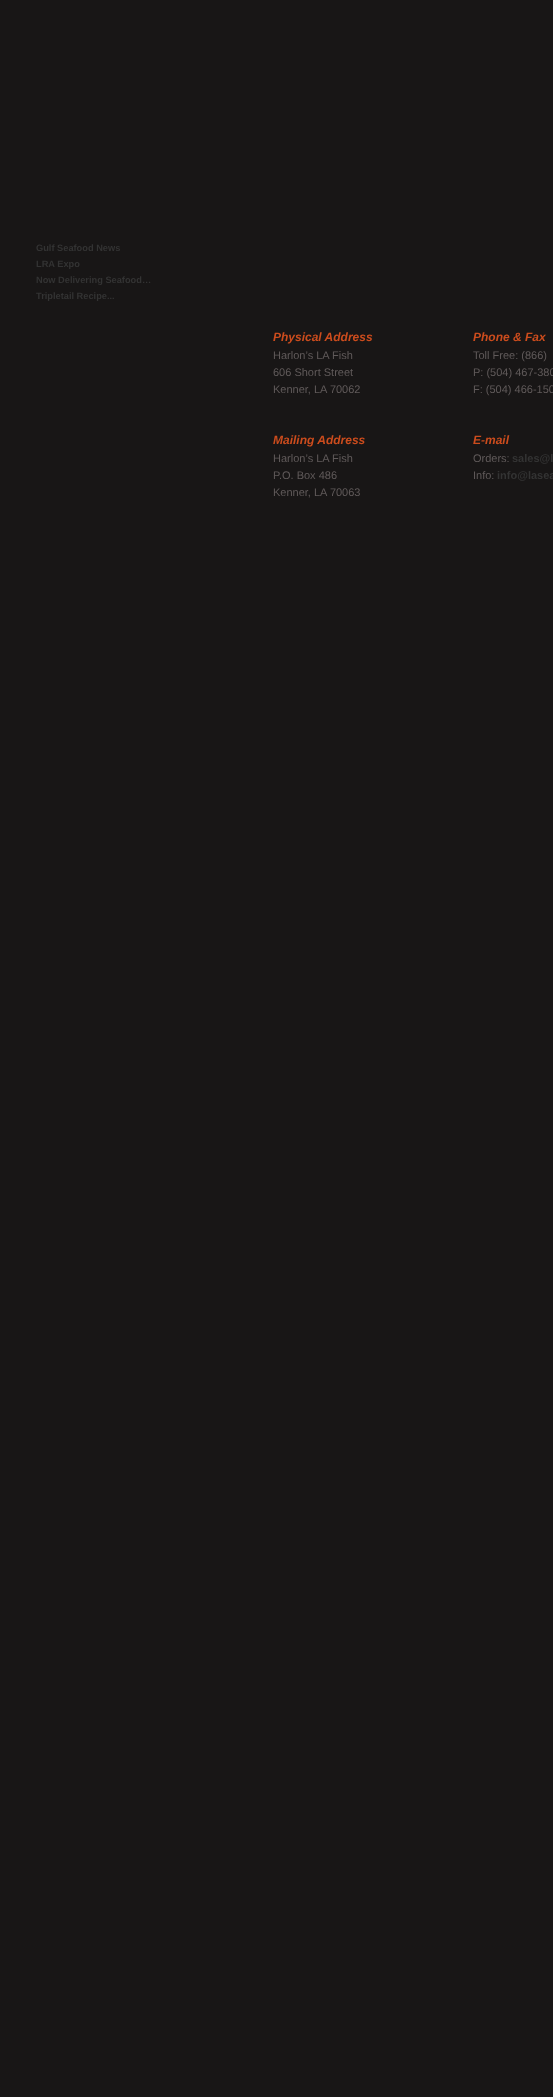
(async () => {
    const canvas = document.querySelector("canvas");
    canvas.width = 553;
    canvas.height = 2097;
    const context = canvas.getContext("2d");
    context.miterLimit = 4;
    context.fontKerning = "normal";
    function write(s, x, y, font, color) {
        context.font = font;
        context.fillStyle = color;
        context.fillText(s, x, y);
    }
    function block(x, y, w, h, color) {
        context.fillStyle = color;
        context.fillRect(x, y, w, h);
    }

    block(0, 0, 553, 2097, "rgb(24, 22, 22)");
    write("Gulf Seafood News", 36, 251, "bold 9.25px Liberation Sans", "rgb(51, 51, 51)");
    write("LRA Expo", 36, 267, "bold 9.25px Liberation Sans", "rgb(51, 51, 51)");
    write("Now Delivering Seafood…", 36, 283, "bold 9.25px Liberation Sans", "rgb(51, 51, 51)");
    write("Tripletail Recipe...", 36, 299, "bold 9.25px Liberation Sans", "rgb(51, 51, 51)");
    write("Physical Address", 273, 341, "italic bold 12px Liberation Sans", "rgb(204, 76, 29)");
    write("Harlon’s LA Fish", 273, 359, "11px Liberation Sans", "rgb(96, 90, 90)");
    write("606 Short Street", 273, 376, "11px Liberation Sans", "rgb(96, 90, 90)");
    write("Kenner, LA 70062", 273, 393, "11px Liberation Sans", "rgb(96, 90, 90)");
    write("Phone & Fax", 473, 341, "italic bold 12px Liberation Sans", "rgb(204, 76, 29)");
    write("Toll Free: (866)", 473, 359, "11px Liberation Sans", "rgb(96, 90, 90)");
    write("P: (504) 467-380", 473, 376, "11px Liberation Sans", "rgb(96, 90, 90)");
    write("F: (504) 466-150", 473, 393, "11px Liberation Sans", "rgb(96, 90, 90)");
    write("Mailing Address", 273, 444, "italic bold 12px Liberation Sans", "rgb(204, 76, 29)");
    write("Harlon’s LA Fish", 273, 462, "11px Liberation Sans", "rgb(96, 90, 90)");
    write("P.O. Box 486", 273, 479, "11px Liberation Sans", "rgb(96, 90, 90)");
    write("Kenner, LA 70063", 273, 496, "11px Liberation Sans", "rgb(96, 90, 90)");
    write("E-mail", 473, 444, "italic bold 12px Liberation Sans", "rgb(204, 76, 29)");
    write("Orders:", 473, 462, "11px Liberation Sans", "rgb(96, 90, 90)");
    write("sales@l", 512, 462, "bold 11px Liberation Sans", "rgb(51, 51, 51)");
    write("Info:", 473, 479, "11px Liberation Sans", "rgb(96, 90, 90)");
    write("info@lasea", 497, 479, "bold 11px Liberation Sans", "rgb(51, 51, 51)");
})();
